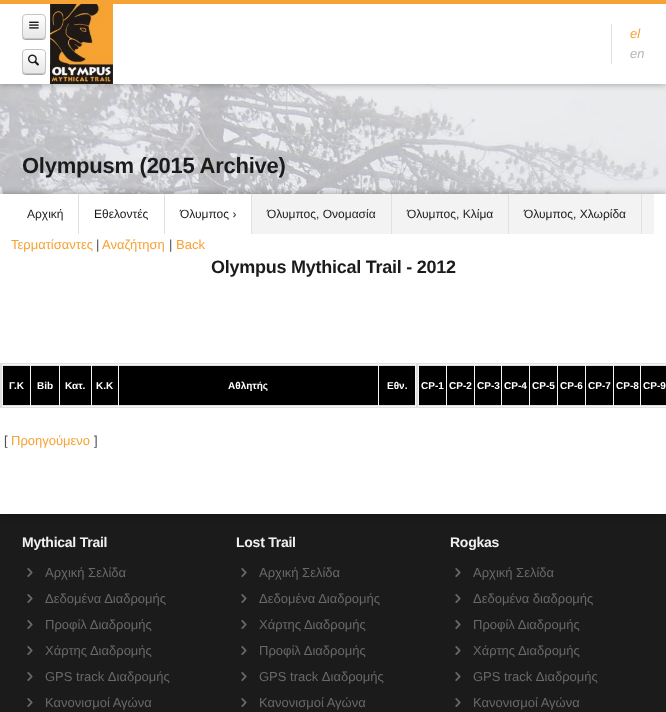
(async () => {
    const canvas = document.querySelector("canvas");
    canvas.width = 666;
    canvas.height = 712;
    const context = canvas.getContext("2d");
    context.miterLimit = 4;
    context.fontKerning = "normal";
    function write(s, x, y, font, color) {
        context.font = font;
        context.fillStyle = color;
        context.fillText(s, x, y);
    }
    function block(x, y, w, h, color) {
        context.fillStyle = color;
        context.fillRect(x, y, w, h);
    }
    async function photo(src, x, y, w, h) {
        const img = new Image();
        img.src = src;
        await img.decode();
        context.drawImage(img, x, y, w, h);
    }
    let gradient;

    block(0, 0, 666, 712, "rgb(255, 255, 255)");
    await photo("media/4.png", 0, 84, 666, 110);
    block(0, 84, 666, 110, "rgba(240, 240, 240, 0.6)");
    context.fillStyle = "rgba(0, 0, 0, 0.35)";
    context.filter = "blur(3.5px)";
    context.beginPath();
    context.rect(0, 4, 666, 80);
    context.fill();
    context.filter = "none";
    block(0, 0, 666, 4, "rgb(247, 162, 52)");
    block(0, 4, 666, 80, "rgb(255, 255, 255)");
    context.fillStyle = "rgb(166, 166, 166)";
    context.beginPath();
    context.moveTo(22, 35);
    context.bezierCurveTo(22, 40, 24.5, 40, 28.5, 40);
    context.lineTo(39.5, 40);
    context.bezierCurveTo(43.5, 40, 46, 40, 46, 35);
    context.bezierCurveTo(46, 37, 44, 39, 42, 39);
    context.lineTo(26, 39);
    context.bezierCurveTo(24, 39, 22, 37, 22, 35);
    context.closePath();
    context.fill();
    context.save();
    context.beginPath();
    context.roundRect(22, 14, 24, 25, 4);
    context.clip();
    gradient = context.createLinearGradient(34, 15, 34, 38);
    gradient.addColorStop(0, "rgb(255, 255, 255)");
    gradient.addColorStop(1, "rgb(231, 231, 231)");
    context.fillStyle = gradient;
    context.fillRect(22, 15, 24, 23);
    context.restore();
    context.beginPath();
    context.roundRect(22.5, 14.5, 23, 24, 3.5);
    context.strokeStyle = "rgb(196, 196, 196)";
    context.stroke();
    await photo("media/1.png", 29, 21, 10, 8);
    context.beginPath();
    context.moveTo(22, 70);
    context.bezierCurveTo(22, 75, 24.5, 75, 28.5, 75);
    context.lineTo(39.5, 75);
    context.bezierCurveTo(43.5, 75, 46, 75, 46, 70);
    context.bezierCurveTo(46, 72, 44, 74, 42, 74);
    context.lineTo(26, 74);
    context.bezierCurveTo(24, 74, 22, 72, 22, 70);
    context.closePath();
    context.fill();
    context.save();
    context.beginPath();
    context.roundRect(22, 49, 24, 25, 4);
    context.clip();
    gradient = context.createLinearGradient(34, 50, 34, 73);
    gradient.addColorStop(0, "rgb(255, 255, 255)");
    gradient.addColorStop(1, "rgb(231, 231, 231)");
    context.fillStyle = gradient;
    context.fillRect(22, 50, 24, 23);
    context.restore();
    context.beginPath();
    context.roundRect(22.5, 49.5, 23, 24, 3.5);
    context.stroke();
    await photo("media/2.png", 28, 54, 11, 12);
    await photo("media/3.png", 50, 4, 63, 80);
    block(611, 24, 1, 40, "rgb(224, 224, 224)");
    write("el", 630, 38, "italic 13px Liberation Sans", "rgb(247, 162, 52)");
    write("en", 630, 58, "italic 13px Liberation Sans", "rgb(182, 182, 182)");
    context.letterSpacing = "-0.25px";
    write("Olympusm (2015 Archive)", 22, 173, "bold 22px Liberation Sans", "rgb(27, 27, 27)");
    block(0, 514, 666, 198, "rgb(27, 27, 27)");
    context.fillStyle = "rgba(0, 0, 0, 0.35)";
    context.filter = "blur(3.5px)";
    context.beginPath();
    context.rect(0, 194, 666, 320);
    context.fill();
    context.filter = "none";
    block(0, 194, 666, 320, "rgb(255, 255, 255)");
    block(78, 194, 1, 40, "rgb(224, 224, 224)");
    context.letterSpacing = "0px";
    write("Αρχική", 27, 218, "12px Liberation Sans", "rgb(27, 27, 27)");
    block(164, 194, 1, 40, "rgb(224, 224, 224)");
    write("Εθελοντές", 94, 218, "12px Liberation Sans", "rgb(27, 27, 27)");
    block(251, 194, 1, 40, "rgb(224, 224, 224)");
    write("Όλυμπος ›", 180, 218, "12px Liberation Sans", "rgb(27, 27, 27)");
    block(252, 194, 402, 40, "rgb(243, 243, 243)");
    block(391, 194, 1, 40, "rgb(224, 224, 224)");
    write("Όλυμπος, Ονομασία", 267, 218, "12px Liberation Sans", "rgb(27, 27, 27)");
    block(508, 194, 1, 40, "rgb(224, 224, 224)");
    write("Όλυμπος, Κλίμα", 407, 218, "12px Liberation Sans", "rgb(27, 27, 27)");
    block(641, 194, 1, 40, "rgb(224, 224, 224)");
    write("Όλυμπος, Χλωρίδα", 524, 218, "12px Liberation Sans", "rgb(27, 27, 27)");
    write("Τερματίσαντες", 11, 249, "13px Liberation Sans", "rgb(247, 162, 52)");
    write("|", 96, 249, "13px Liberation Sans", "rgb(78, 78, 78)");
    write("Αναζήτηση", 102, 249, "13px Liberation Sans", "rgb(247, 162, 52)");
    write("|", 169, 249, "13px Liberation Sans", "rgb(78, 78, 78)");
    write("Back", 176, 249, "13px Liberation Sans", "rgb(247, 162, 52)");
    context.letterSpacing = "-0.25px";
    write("Olympus Mythical Trail - 2012", 211, 273, "bold 18px Liberation Sans", "rgb(27, 27, 27)");
    block(0, 363, 1, 45, "rgb(224, 224, 224)");
    block(2, 364, 664, 43, "rgb(245, 245, 245)");
    block(416, 364, 2, 43, "rgb(224, 224, 224)");
    block(1, 364, 1, 43, "rgb(224, 224, 224)");
    block(3, 366, 27, 39, "rgb(0, 0, 0)");
    block(3, 365, 27, 1, "rgb(224, 224, 224)");
    block(3, 405, 27, 1, "rgb(224, 224, 224)");
    context.letterSpacing = "0px";
    write("Γ.Κ", 9, 389, "bold 10px Liberation Sans", "rgb(255, 255, 255)");
    block(31, 366, 28, 39, "rgb(0, 0, 0)");
    block(31, 365, 28, 1, "rgb(224, 224, 224)");
    block(31, 405, 28, 1, "rgb(224, 224, 224)");
    write("Bib", 37, 389, "bold 10px Liberation Sans", "rgb(255, 255, 255)");
    block(60, 366, 31, 39, "rgb(0, 0, 0)");
    block(60, 365, 31, 1, "rgb(224, 224, 224)");
    block(60, 405, 31, 1, "rgb(224, 224, 224)");
    write("Κατ.", 65, 389, "bold 10px Liberation Sans", "rgb(255, 255, 255)");
    block(92, 366, 26, 39, "rgb(0, 0, 0)");
    block(92, 365, 26, 1, "rgb(224, 224, 224)");
    block(92, 405, 26, 1, "rgb(224, 224, 224)");
    write("Κ.Κ", 96, 389, "bold 10px Liberation Sans", "rgb(255, 255, 255)");
    block(119, 366, 259, 39, "rgb(0, 0, 0)");
    block(119, 365, 259, 1, "rgb(224, 224, 224)");
    block(119, 405, 259, 1, "rgb(224, 224, 224)");
    write("Αθλητής", 228, 389, "bold 10px Liberation Sans", "rgb(255, 255, 255)");
    block(379, 366, 36, 39, "rgb(0, 0, 0)");
    block(379, 365, 36, 1, "rgb(224, 224, 224)");
    block(379, 405, 36, 1, "rgb(224, 224, 224)");
    write("Εθν.", 387, 389, "bold 10px Liberation Sans", "rgb(255, 255, 255)");
    block(0, 363, 666, 1, "rgb(224, 224, 224)");
    block(0, 407, 666, 1, "rgb(224, 224, 224)");
    block(419, 366, 27, 39, "rgb(0, 0, 0)");
    block(419, 365, 27, 1, "rgb(224, 224, 224)");
    block(419, 405, 27, 1, "rgb(224, 224, 224)");
    write("CP-1", 421, 389, "bold 10px Liberation Sans", "rgb(255, 255, 255)");
    block(447, 366, 27, 39, "rgb(0, 0, 0)");
    block(447, 365, 27, 1, "rgb(224, 224, 224)");
    block(447, 405, 27, 1, "rgb(224, 224, 224)");
    write("CP-2", 449, 389, "bold 10px Liberation Sans", "rgb(255, 255, 255)");
    block(475, 366, 26, 39, "rgb(0, 0, 0)");
    block(475, 365, 26, 1, "rgb(224, 224, 224)");
    block(475, 405, 26, 1, "rgb(224, 224, 224)");
    write("CP-3", 477, 389, "bold 10px Liberation Sans", "rgb(255, 255, 255)");
    block(502, 366, 27, 39, "rgb(0, 0, 0)");
    block(502, 365, 27, 1, "rgb(224, 224, 224)");
    block(502, 405, 27, 1, "rgb(224, 224, 224)");
    write("CP-4", 504, 389, "bold 10px Liberation Sans", "rgb(255, 255, 255)");
    block(530, 366, 27, 39, "rgb(0, 0, 0)");
    block(530, 365, 27, 1, "rgb(224, 224, 224)");
    block(530, 405, 27, 1, "rgb(224, 224, 224)");
    write("CP-5", 532, 389, "bold 10px Liberation Sans", "rgb(255, 255, 255)");
    block(558, 366, 27, 39, "rgb(0, 0, 0)");
    block(558, 365, 27, 1, "rgb(224, 224, 224)");
    block(558, 405, 27, 1, "rgb(224, 224, 224)");
    write("CP-6", 560, 389, "bold 10px Liberation Sans", "rgb(255, 255, 255)");
    block(586, 366, 27, 39, "rgb(0, 0, 0)");
    block(586, 365, 27, 1, "rgb(224, 224, 224)");
    block(586, 405, 27, 1, "rgb(224, 224, 224)");
    write("CP-7", 588, 389, "bold 10px Liberation Sans", "rgb(255, 255, 255)");
    block(614, 366, 26, 39, "rgb(0, 0, 0)");
    block(614, 365, 26, 1, "rgb(224, 224, 224)");
    block(614, 405, 26, 1, "rgb(224, 224, 224)");
    write("CP-8", 616, 389, "bold 10px Liberation Sans", "rgb(255, 255, 255)");
    block(641, 366, 25, 39, "rgb(0, 0, 0)");
    block(641, 365, 25, 1, "rgb(224, 224, 224)");
    block(641, 405, 25, 1, "rgb(224, 224, 224)");
    write("CP-9", 643, 389, "bold 10px Liberation Sans", "rgb(255, 255, 255)");
    write("[", 4, 445, "13px Liberation Sans", "rgb(78, 78, 78)");
    write("Προηγούμενο", 11, 445, "13px Liberation Sans", "rgb(247, 162, 52)");
    write("]", 94, 445, "13px Liberation Sans", "rgb(78, 78, 78)");
    context.letterSpacing = "-0.25px";
    write("Mythical Trail", 22, 547, "bold 14px Liberation Sans", "rgb(240, 240, 240)");
    await photo("media/5.png", 27, 568, 6, 9);
    context.letterSpacing = "0px";
    write("Αρχική Σελίδα", 45, 577, "13px Liberation Sans", "rgb(105, 105, 105)");
    await photo("media/5.png", 27, 594, 6, 9);
    write("Δεδομένα Διαδρομής", 45, 603, "13px Liberation Sans", "rgb(105, 105, 105)");
    await photo("media/5.png", 27, 620, 6, 9);
    write("Προφίλ Διαδρομής", 45, 629, "13px Liberation Sans", "rgb(105, 105, 105)");
    await photo("media/5.png", 27, 646, 6, 9);
    write("Χάρτης Διαδρομής", 45, 655, "13px Liberation Sans", "rgb(105, 105, 105)");
    await photo("media/5.png", 27, 672, 6, 9);
    write("GPS track Διαδρομής", 45, 681, "13px Liberation Sans", "rgb(105, 105, 105)");
    await photo("media/5.png", 27, 698, 6, 9);
    write("Κανονισμοί Αγώνα", 45, 707, "13px Liberation Sans", "rgb(105, 105, 105)");
    context.letterSpacing = "-0.25px";
    write("Lost Trail", 236, 547, "bold 14px Liberation Sans", "rgb(240, 240, 240)");
    await photo("media/5.png", 241, 568, 6, 9);
    context.letterSpacing = "0px";
    write("Αρχική Σελίδα", 259, 577, "13px Liberation Sans", "rgb(105, 105, 105)");
    await photo("media/5.png", 241, 594, 6, 9);
    write("Δεδομένα Διαδρομής", 259, 603, "13px Liberation Sans", "rgb(105, 105, 105)");
    await photo("media/5.png", 241, 620, 6, 9);
    write("Χάρτης Διαδρομής", 259, 629, "13px Liberation Sans", "rgb(105, 105, 105)");
    await photo("media/5.png", 241, 646, 6, 9);
    write("Προφίλ Διαδρομής", 259, 655, "13px Liberation Sans", "rgb(105, 105, 105)");
    await photo("media/5.png", 241, 672, 6, 9);
    write("GPS track Διαδρομής", 259, 681, "13px Liberation Sans", "rgb(105, 105, 105)");
    await photo("media/5.png", 241, 698, 6, 9);
    write("Κανονισμοί Αγώνα", 259, 707, "13px Liberation Sans", "rgb(105, 105, 105)");
    context.letterSpacing = "-0.25px";
    write("Rogkas", 450, 547, "bold 14px Liberation Sans", "rgb(240, 240, 240)");
    await photo("media/5.png", 455, 568, 6, 9);
    context.letterSpacing = "0px";
    write("Αρχική Σελίδα", 473, 577, "13px Liberation Sans", "rgb(105, 105, 105)");
    await photo("media/5.png", 455, 594, 6, 9);
    write("Δεδομένα διαδρομής", 473, 603, "13px Liberation Sans", "rgb(105, 105, 105)");
    await photo("media/5.png", 455, 620, 6, 9);
    write("Προφίλ Διαδρομής", 473, 629, "13px Liberation Sans", "rgb(105, 105, 105)");
    await photo("media/5.png", 455, 646, 6, 9);
    write("Χάρτης Διαδρομής", 473, 655, "13px Liberation Sans", "rgb(105, 105, 105)");
    await photo("media/5.png", 455, 672, 6, 9);
    write("GPS track Διαδρομής", 473, 681, "13px Liberation Sans", "rgb(105, 105, 105)");
    await photo("media/5.png", 455, 698, 6, 9);
    write("Κανονισμοί Αγώνα", 473, 707, "13px Liberation Sans", "rgb(105, 105, 105)");
})();
